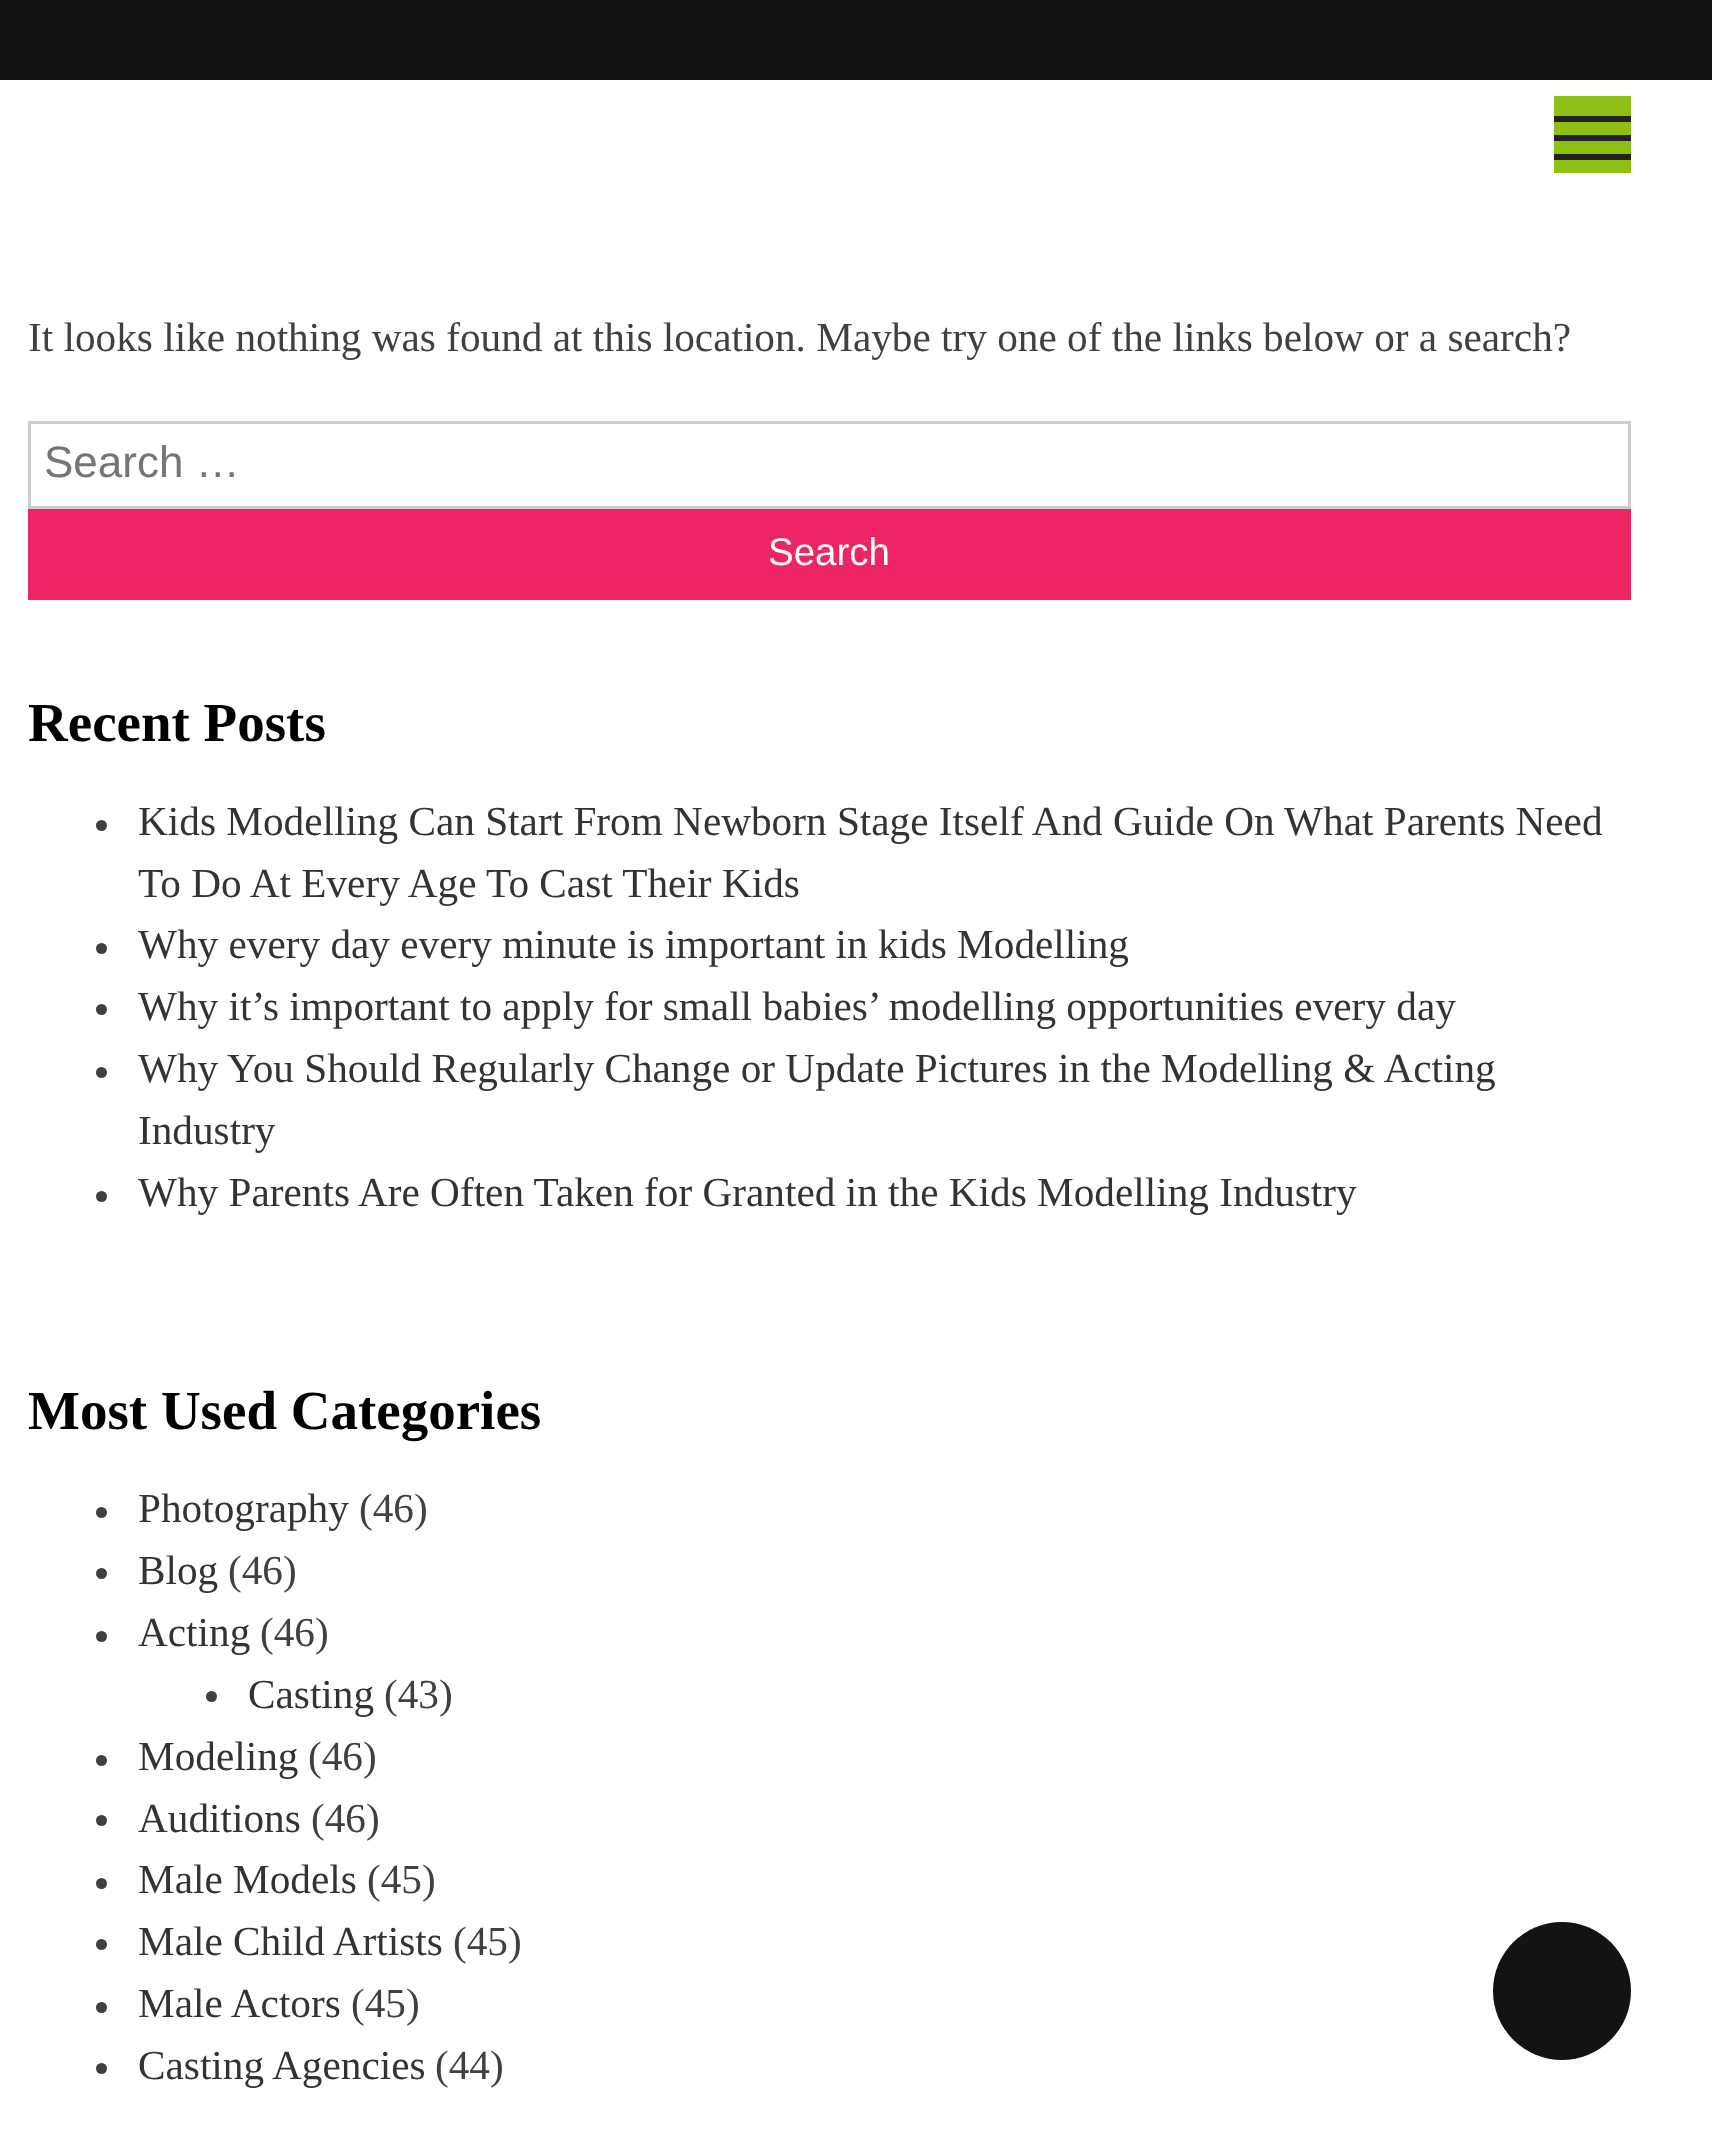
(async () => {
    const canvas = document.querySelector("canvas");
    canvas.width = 1712;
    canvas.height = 2140;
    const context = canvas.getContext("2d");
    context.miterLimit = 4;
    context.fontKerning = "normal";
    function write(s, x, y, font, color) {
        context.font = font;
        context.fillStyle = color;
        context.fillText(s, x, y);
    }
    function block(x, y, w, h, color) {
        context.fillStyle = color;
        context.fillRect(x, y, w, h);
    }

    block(0, 0, 1712, 2140, "rgb(255, 255, 255)");
    block(0, 0, 1712, 80, "rgb(16, 16, 16)");
    block(1554, 96, 77, 77, "rgb(141, 191, 20)");
    block(1554, 135, 77, 6, "rgb(34, 34, 34)");
    block(1554, 116, 77, 6, "rgb(34, 34, 34)");
    block(1554, 154, 77, 6, "rgb(34, 34, 34)");
    write("It looks like nothing was found at this location. Maybe try one of the links below or a search?", 28, 351, "41.25px Liberation Serif", "rgb(64, 64, 64)");
    context.strokeStyle = "rgb(204, 204, 204)";
    context.lineWidth = 3;
    context.strokeRect(29.5, 422.5, 1600, 85);
    write("Search …", 44, 477, "44px Liberation Sans", "rgb(117, 117, 117)");
    block(28, 509, 1603, 91, "rgb(237, 37, 99)");
    write("Search", 768, 565, "38.5px Liberation Sans", "rgb(255, 255, 255)");
    write("Recent Posts", 28, 741, "bold 55px Liberation Serif", "rgb(0, 0, 0)");
    context.fillStyle = "rgb(64, 64, 64)";
    context.beginPath();
    context.arc(101.5, 825.5, 5.5, 0, Math.PI * 2);
    context.fill();
    write("Kids Modelling Can Start From Newborn Stage Itself And Guide On What Parents Need", 138, 835, "41.25px Liberation Serif", "rgb(51, 51, 51)");
    write("To Do At Every Age To Cast Their Kids", 138, 897, "41.25px Liberation Serif", "rgb(51, 51, 51)");
    context.fillStyle = "rgb(64, 64, 64)";
    context.beginPath();
    context.arc(101.5, 948.5, 5.5, 0, Math.PI * 2);
    context.fill();
    write("Why every day every minute is important in kids Modelling", 138, 958, "41.25px Liberation Serif", "rgb(51, 51, 51)");
    context.fillStyle = "rgb(64, 64, 64)";
    context.beginPath();
    context.arc(101.5, 1009.5, 5.5, 0, Math.PI * 2);
    context.fill();
    write("Why it’s important to apply for small babies’ modelling opportunities every day", 138, 1020, "41.25px Liberation Serif", "rgb(51, 51, 51)");
    context.fillStyle = "rgb(64, 64, 64)";
    context.beginPath();
    context.arc(101.5, 1072.5, 5.5, 0, Math.PI * 2);
    context.fill();
    write("Why You Should Regularly Change or Update Pictures in the Modelling & Acting", 138, 1082, "41.25px Liberation Serif", "rgb(51, 51, 51)");
    write("Industry", 138, 1144, "41.25px Liberation Serif", "rgb(51, 51, 51)");
    context.fillStyle = "rgb(64, 64, 64)";
    context.beginPath();
    context.arc(101.5, 1196.5, 5.5, 0, Math.PI * 2);
    context.fill();
    write("Why Parents Are Often Taken for Granted in the Kids Modelling Industry", 138, 1206, "41.25px Liberation Serif", "rgb(51, 51, 51)");
    write("Most Used Categories", 28, 1429, "bold 55px Liberation Serif", "rgb(0, 0, 0)");
    context.fillStyle = "rgb(64, 64, 64)";
    context.beginPath();
    context.arc(101.5, 1512.5, 5.5, 0, Math.PI * 2);
    context.fill();
    write("Photography", 138, 1522, "41.25px Liberation Serif", "rgb(51, 51, 51)");
    write("(46)", 359, 1522, "41.25px Liberation Serif", "rgb(64, 64, 64)");
    context.beginPath();
    context.arc(101.5, 1573.5, 5.5, 0, Math.PI * 2);
    context.fill();
    write("Blog", 138, 1584, "41.25px Liberation Serif", "rgb(51, 51, 51)");
    write("(46)", 228, 1584, "41.25px Liberation Serif", "rgb(64, 64, 64)");
    context.beginPath();
    context.arc(101.5, 1636.5, 5.5, 0, Math.PI * 2);
    context.fill();
    write("Acting", 138, 1646, "41.25px Liberation Serif", "rgb(51, 51, 51)");
    write("(46)", 260, 1646, "41.25px Liberation Serif", "rgb(64, 64, 64)");
    context.beginPath();
    context.arc(211.5, 1696.5, 5.5, 0, Math.PI * 2);
    context.fill();
    write("Casting", 248, 1708, "41.25px Liberation Serif", "rgb(51, 51, 51)");
    write("(43)", 384, 1708, "41.25px Liberation Serif", "rgb(64, 64, 64)");
    context.beginPath();
    context.arc(101.5, 1760.5, 5.5, 0, Math.PI * 2);
    context.fill();
    write("Modeling", 138, 1770, "41.25px Liberation Serif", "rgb(51, 51, 51)");
    write("(46)", 308, 1770, "41.25px Liberation Serif", "rgb(64, 64, 64)");
    context.beginPath();
    context.arc(101.5, 1820.5, 5.5, 0, Math.PI * 2);
    context.fill();
    write("Auditions", 138, 1832, "41.25px Liberation Serif", "rgb(51, 51, 51)");
    write("(46)", 311, 1832, "41.25px Liberation Serif", "rgb(64, 64, 64)");
    context.beginPath();
    context.arc(101.5, 1883.5, 5.5, 0, Math.PI * 2);
    context.fill();
    write("Male Models", 138, 1893, "41.25px Liberation Serif", "rgb(51, 51, 51)");
    write("(45)", 367, 1893, "41.25px Liberation Serif", "rgb(64, 64, 64)");
    context.beginPath();
    context.arc(101.5, 1944.5, 5.5, 0, Math.PI * 2);
    context.fill();
    write("Male Child Artists", 138, 1955, "41.25px Liberation Serif", "rgb(51, 51, 51)");
    write("(45)", 453, 1955, "41.25px Liberation Serif", "rgb(64, 64, 64)");
    context.beginPath();
    context.arc(101.5, 2007.5, 5.5, 0, Math.PI * 2);
    context.fill();
    write("Male Actors", 138, 2017, "41.25px Liberation Serif", "rgb(51, 51, 51)");
    write("(45)", 351, 2017, "41.25px Liberation Serif", "rgb(64, 64, 64)");
    context.beginPath();
    context.arc(101.5, 2068.5, 5.5, 0, Math.PI * 2);
    context.fill();
    write("Casting Agencies", 138, 2079, "41.25px Liberation Serif", "rgb(51, 51, 51)");
    write("(44)", 435, 2079, "41.25px Liberation Serif", "rgb(64, 64, 64)");
    context.fillStyle = "rgb(19, 19, 19)";
    context.beginPath();
    context.arc(1562, 1991, 69, 0, Math.PI * 2);
    context.fill();
})();
